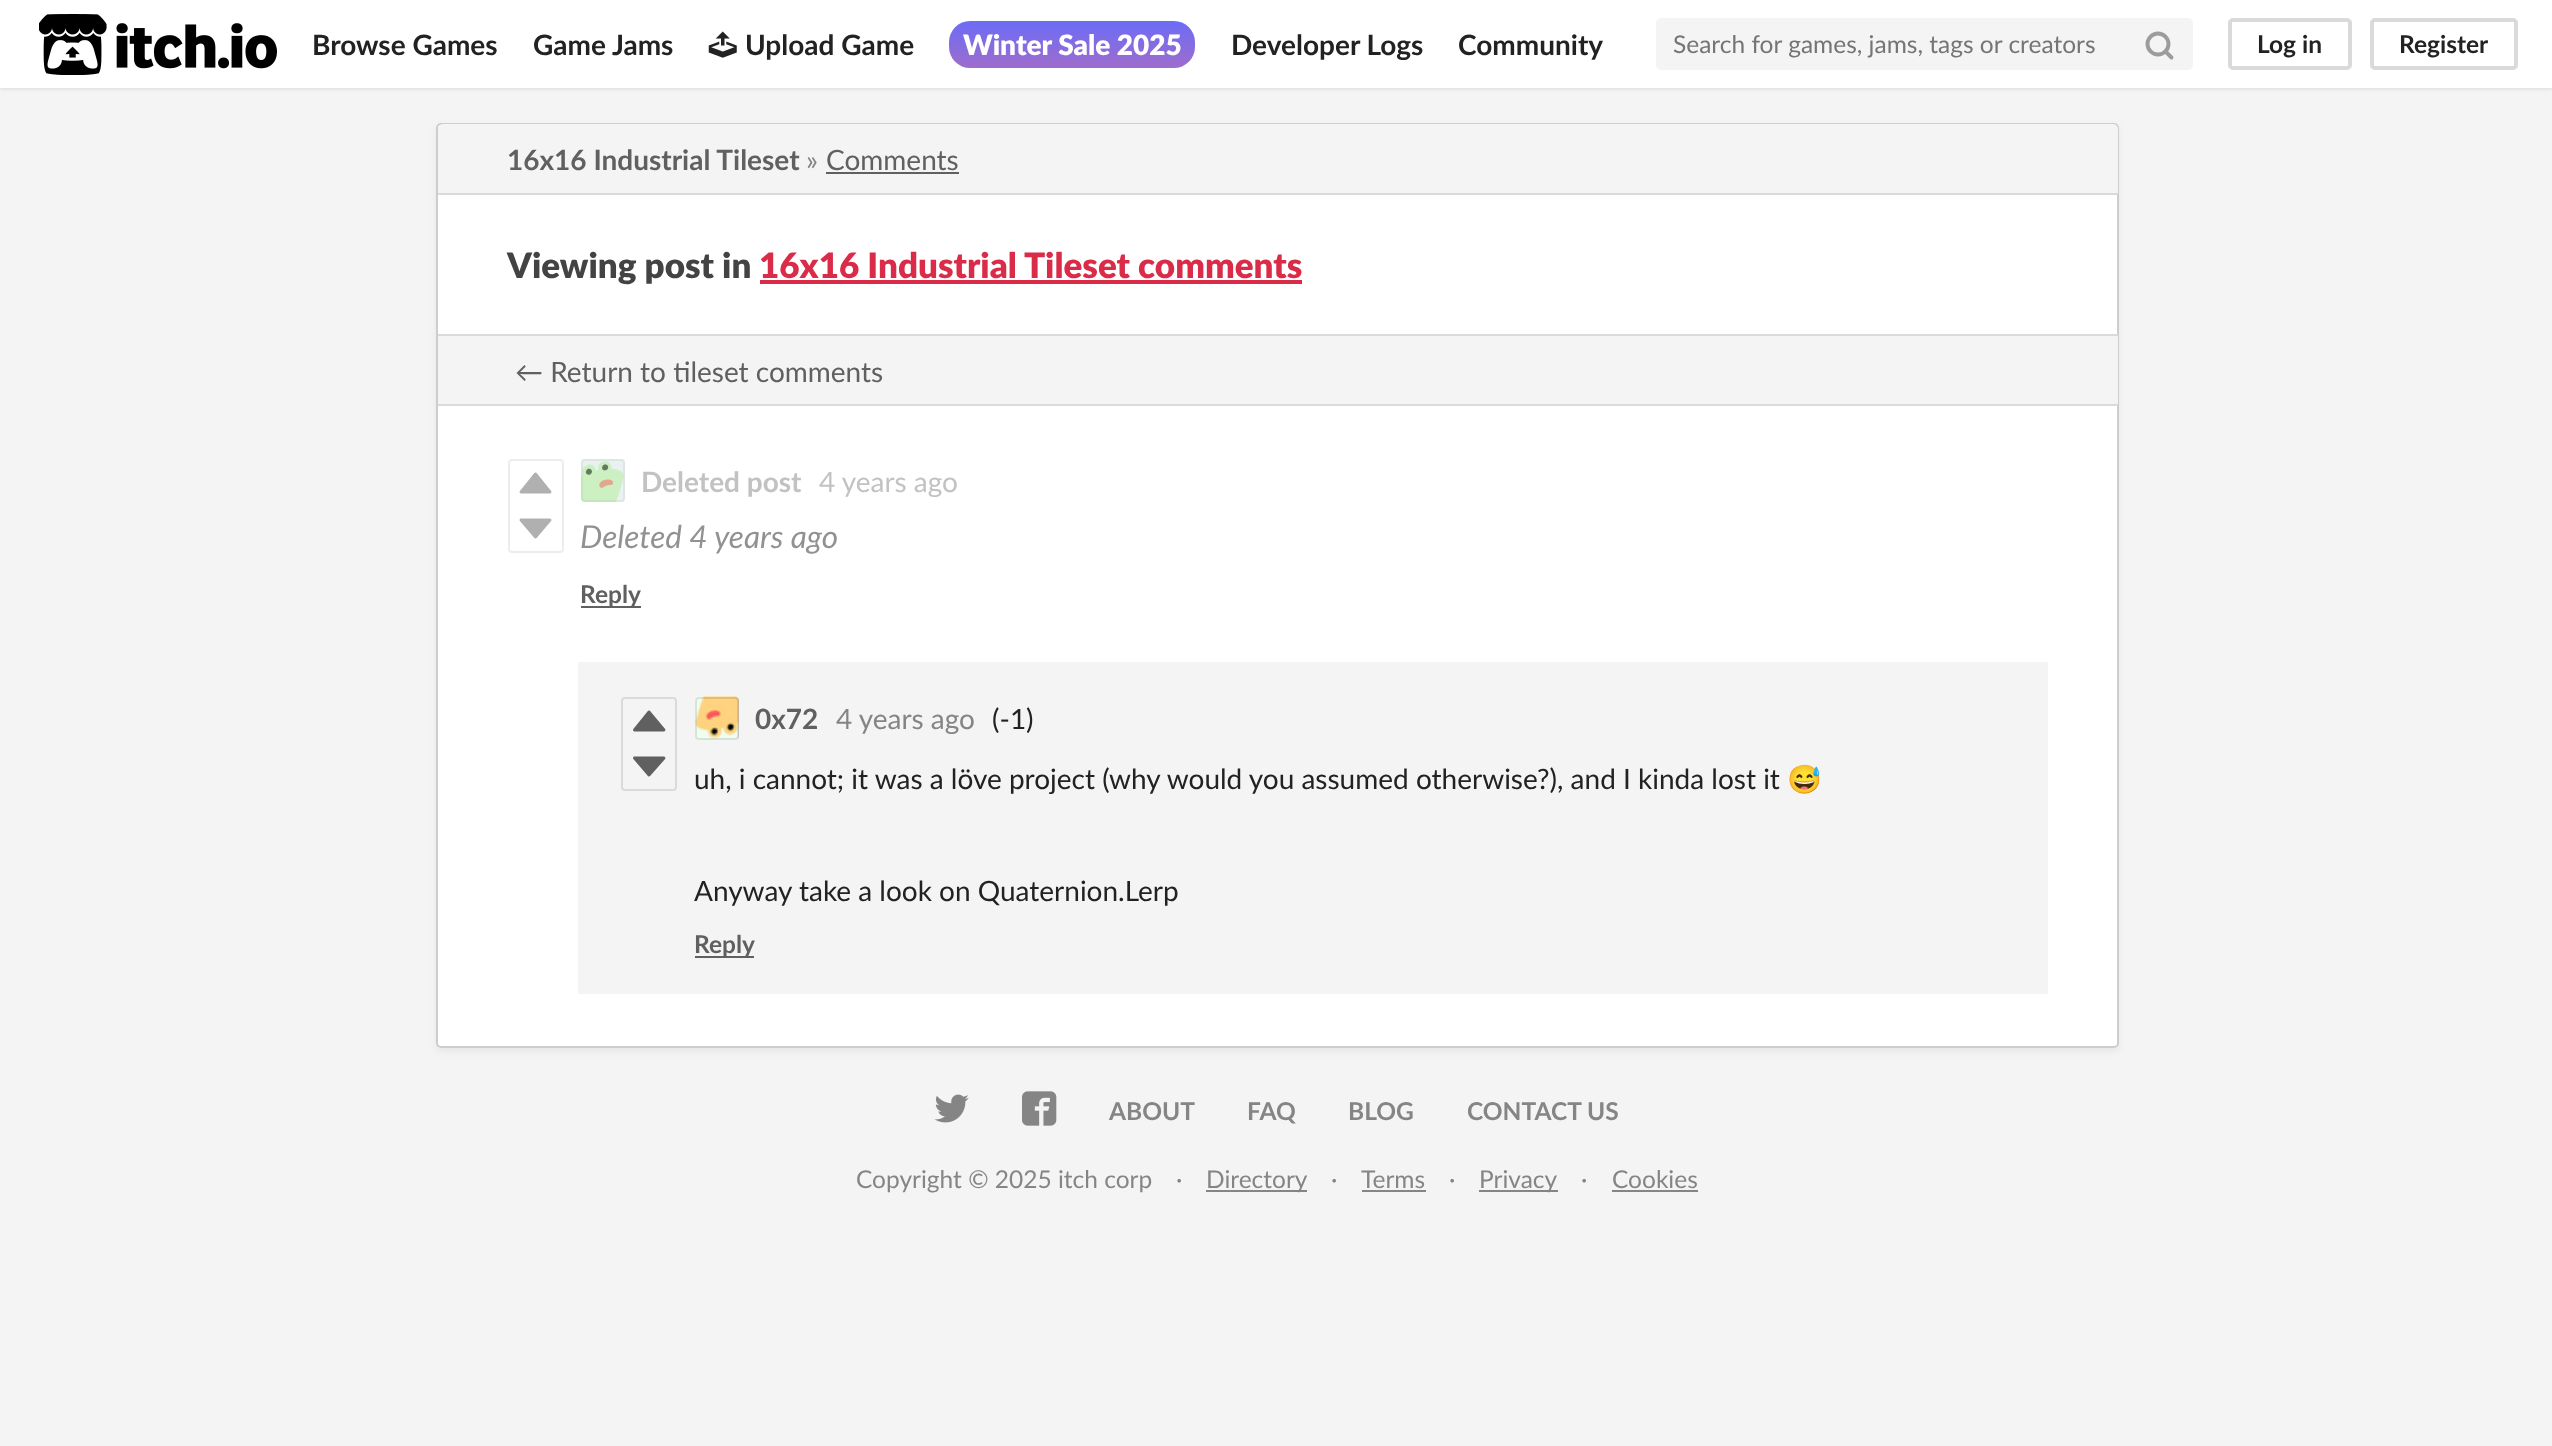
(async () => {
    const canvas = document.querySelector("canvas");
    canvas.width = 2552;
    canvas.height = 1446;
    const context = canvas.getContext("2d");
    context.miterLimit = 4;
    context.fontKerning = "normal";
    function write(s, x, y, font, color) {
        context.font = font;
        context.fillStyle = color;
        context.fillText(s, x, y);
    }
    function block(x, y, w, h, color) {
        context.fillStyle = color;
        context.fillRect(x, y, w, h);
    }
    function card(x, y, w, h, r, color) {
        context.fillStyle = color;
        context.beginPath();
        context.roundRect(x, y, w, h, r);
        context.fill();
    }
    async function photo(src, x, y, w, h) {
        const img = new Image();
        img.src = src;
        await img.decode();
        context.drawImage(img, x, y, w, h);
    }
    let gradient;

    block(0, 0, 2552, 1446, "rgb(244, 244, 244)");
    context.fillStyle = "rgba(0, 0, 0, 0.1)";
    context.filter = "blur(2px)";
    context.beginPath();
    context.rect(0, 2, 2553, 87);
    context.fill();
    context.filter = "none";
    block(0, 0, 2552, 88, "rgb(255, 255, 255)");
    await photo("media/1.png", 39, 14, 238, 61);
    write("Browse Games", 312, 55, "bold 28px Lato", "rgb(34, 34, 34)");
    write("Game Jams", 533, 55, "bold 28px Lato", "rgb(34, 34, 34)");
    await photo("media/2.png", 708, 31, 29, 27);
    write("Upload Game", 745, 55, "bold 28px Lato", "rgb(34, 34, 34)");
    gradient = context.createLinearGradient(1072, 21, 1072, 68);
    gradient.addColorStop(0, "rgb(108, 108, 246)");
    gradient.addColorStop(1, "rgb(158, 108, 205)");
    context.fillStyle = gradient;
    context.beginPath();
    context.roundRect(949, 21, 246, 47, 21);
    context.fill();
    write("Winter Sale 2025", 963, 55, "900 28px Lato", "rgb(255, 255, 255)");
    write("Developer Logs", 1231, 55, "bold 28px Lato", "rgb(34, 34, 34)");
    write("Community", 1458, 55, "bold 28px Lato", "rgb(34, 34, 34)");
    card(1656, 18, 537, 52, 5, "rgb(244, 244, 244)");
    write("Search for games, jams, tags or creators", 1673, 53, "24.5px Lato", "rgb(117, 117, 117)");
    context.beginPath();
    context.arc(2158, 44, 10.5, 0, Math.PI * 2);
    context.strokeStyle = "rgb(156, 156, 156)";
    context.lineWidth = 3.9;
    context.stroke();
    context.beginPath();
    context.moveTo(2171.5, 57.5);
    context.lineTo(2165.5, 51.5);
    context.lineCap = "round";
    context.lineJoin = "round";
    context.stroke();
    context.beginPath();
    context.roundRect(2230, 20, 120, 48, 3);
    context.strokeStyle = "rgb(218, 218, 218)";
    context.lineWidth = 4;
    context.lineJoin = "miter";
    context.stroke();
    write("Log in", 2257, 53, "bold 24.5px Lato", "rgb(34, 34, 34)");
    context.beginPath();
    context.roundRect(2372, 20, 144, 48, 3);
    context.stroke();
    write("Register", 2399, 53, "bold 24.5px Lato", "rgb(34, 34, 34)");
    context.fillStyle = "rgba(0, 0, 0, 0.05)";
    context.filter = "blur(3.5px)";
    context.beginPath();
    context.roundRect(436, 126, 1683, 926, 5);
    context.fill();
    context.filter = "none";
    context.fillStyle = "rgb(255, 255, 255)";
    context.beginPath();
    context.roundRect(437, 124, 1681, 923, 4);
    context.fill();
    context.strokeStyle = "rgb(205, 205, 205)";
    context.lineWidth = 2;
    context.stroke();
    context.fillStyle = "rgb(244, 244, 244)";
    context.beginPath();
    context.roundRect(438, 124, 1680, 70, [5, 5, 0, 0]);
    context.fill();
    block(438, 193, 1680, 2, "rgb(218, 218, 218)");
    write("16x16 Industrial Tileset", 507, 170, "bold 28px Lato", "rgb(96, 96, 96)");
    write("»", 806, 170, "28px Lato", "rgb(133, 133, 133)");
    write("Comments", 826, 170, "28px Lato", "rgb(96, 96, 96)");
    block(826, 172, 133, 2, "rgb(96, 96, 96)");
    block(438, 334, 1680, 2, "rgb(218, 218, 218)");
    write("Viewing post in", 507, 278, "900 35px Lato", "rgb(67, 67, 67)");
    write("16x16 Industrial Tileset comments", 759, 278, "900 35px Lato", "rgb(218, 44, 73)");
    block(760, 280, 542, 4, "rgb(218, 44, 73)");
    block(438, 336, 1680, 68, "rgb(244, 244, 244)");
    block(438, 404, 1680, 2, "rgb(218, 218, 218)");
    write("← Return to tileset comments", 515, 382, "28px Lato", "rgb(96, 96, 96)");
    context.beginPath();
    context.roundRect(509, 460, 54, 92, 3);
    context.strokeStyle = "rgb(237, 237, 237)";
    context.stroke();
    context.fillStyle = "rgb(176, 176, 176)";
    context.beginPath();
    context.moveTo(521, 492);
    context.lineTo(535.5, 474);
    context.lineTo(550, 492);
    context.closePath();
    context.fill();
    context.strokeStyle = "rgb(176, 176, 176)";
    context.lineWidth = 2.9;
    context.lineCap = "butt";
    context.lineJoin = "round";
    context.stroke();
    context.beginPath();
    context.moveTo(521, 520);
    context.lineTo(535.5, 537);
    context.lineTo(550, 520);
    context.closePath();
    context.fill();
    context.stroke();
    card(581, 459, 44, 43, 4, "rgb(230, 230, 230)");
    await photo("media/3.png", 581, 459, 44, 43);
    context.beginPath();
    context.roundRect(582, 460, 42, 41, 3);
    context.strokeStyle = "rgba(128, 128, 128, 0.1)";
    context.lineWidth = 2;
    context.lineJoin = "miter";
    context.stroke();
    write("Deleted post", 641, 492, "bold 28px Lato", "rgb(194, 194, 194)");
    write("4 years ago", 819, 492, "28px Lato", "rgb(194, 194, 194)");
    write("Deleted 4 years ago", 580, 548, "italic 31.5px Lato", "rgb(145, 145, 145)");
    block(581, 606, 60, 2, "rgb(96, 96, 96)");
    write("Reply", 580, 603, "bold 24.5px Lato", "rgb(96, 96, 96)");
    block(578, 662, 1470, 332, "rgb(244, 244, 244)");
    context.beginPath();
    context.roundRect(622, 698, 54, 92, 3);
    context.strokeStyle = "rgb(218, 218, 218)";
    context.stroke();
    context.fillStyle = "rgb(96, 96, 96)";
    context.beginPath();
    context.moveTo(634.5, 730);
    context.lineTo(649, 712);
    context.lineTo(664, 730);
    context.closePath();
    context.fill();
    context.strokeStyle = "rgb(96, 96, 96)";
    context.lineWidth = 2.9;
    context.lineJoin = "round";
    context.stroke();
    context.beginPath();
    context.moveTo(634.5, 758);
    context.lineTo(649, 775);
    context.lineTo(664, 758);
    context.closePath();
    context.fill();
    context.stroke();
    card(695, 697, 44, 43, 4, "rgb(195, 195, 195)");
    await photo("media/4.png", 694, 696, 45, 44);
    context.beginPath();
    context.roundRect(696, 698, 42, 41, 3);
    context.strokeStyle = "rgba(0, 0, 0, 0.1)";
    context.lineWidth = 2;
    context.lineJoin = "miter";
    context.stroke();
    write("0x72", 755, 729, "bold 28px Lato", "rgb(96, 96, 96)");
    write("4 years ago", 836, 729, "28px Lato", "rgb(133, 133, 133)");
    write("(-1)", 992, 729, "28px Lato", "rgb(34, 34, 34)");
    write("uh, i cannot; it was a löve project (why would you assumed otherwise?), and I kinda lost it", 694, 789, "28px Lato", "rgb(34, 34, 34)");
    write("😅", 1787, 789, "28px Noto Color Emoji", "rgb(34, 34, 34)");
    write("Anyway take a look on Quaternion.Lerp", 694, 901, "28px Lato", "rgb(34, 34, 34)");
    block(695, 956, 59, 2, "rgb(96, 96, 96)");
    write("Reply", 694, 953, "bold 24.5px Lato", "rgb(96, 96, 96)");
    await photo("media/5.png", 934, 1094, 35, 29);
    await photo("media/6.png", 1022, 1091, 35, 35);
    write("ABOUT", 1109, 1120, "bold 24.5px Lato", "rgb(133, 133, 133)");
    write("FAQ", 1247, 1120, "bold 24.5px Lato", "rgb(133, 133, 133)");
    write("BLOG", 1348, 1120, "bold 24.5px Lato", "rgb(133, 133, 133)");
    write("CONTACT US", 1467, 1120, "bold 24.5px Lato", "rgb(133, 133, 133)");
    write("Copyright © 2025 itch corp", 856, 1188, "24.5px Lato", "rgb(133, 133, 133)");
    write("·", 1176, 1188, "24.5px Lato", "rgb(133, 133, 133)");
    block(1206, 1190, 101, 2, "rgb(133, 133, 133)");
    write("Directory", 1206, 1188, "24.5px Lato", "rgb(133, 133, 133)");
    write("·", 1331, 1188, "24.5px Lato", "rgb(133, 133, 133)");
    write("Terms", 1361, 1188, "24.5px Lato", "rgb(133, 133, 133)");
    block(1362, 1190, 64, 2, "rgb(133, 133, 133)");
    write("·", 1449, 1188, "24.5px Lato", "rgb(133, 133, 133)");
    block(1479, 1190, 79, 2, "rgb(133, 133, 133)");
    write("Privacy", 1479, 1188, "24.5px Lato", "rgb(133, 133, 133)");
    write("·", 1581, 1188, "24.5px Lato", "rgb(133, 133, 133)");
    write("Cookies", 1612, 1188, "24.5px Lato", "rgb(133, 133, 133)");
    block(1612, 1190, 86, 2, "rgb(133, 133, 133)");
})();
